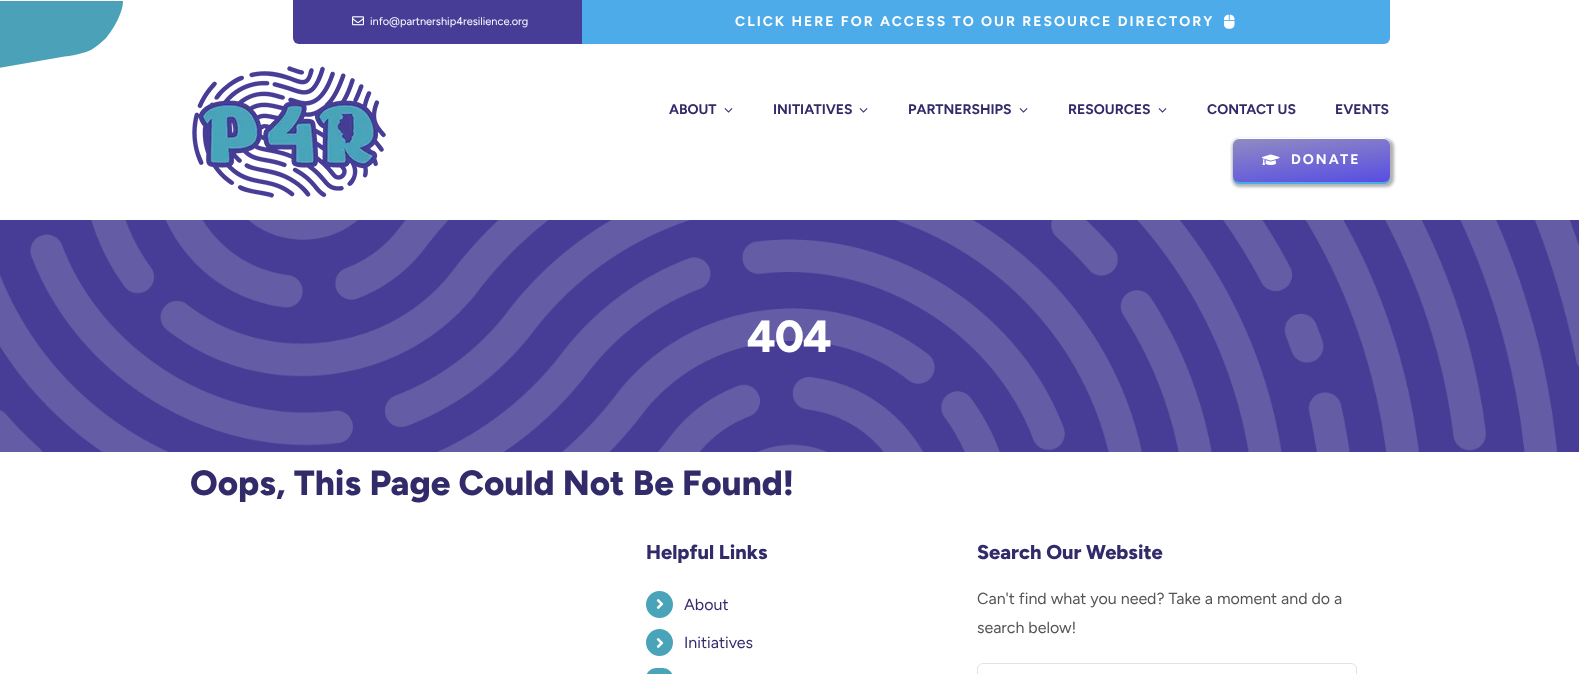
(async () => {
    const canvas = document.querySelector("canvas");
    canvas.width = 1579;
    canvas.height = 674;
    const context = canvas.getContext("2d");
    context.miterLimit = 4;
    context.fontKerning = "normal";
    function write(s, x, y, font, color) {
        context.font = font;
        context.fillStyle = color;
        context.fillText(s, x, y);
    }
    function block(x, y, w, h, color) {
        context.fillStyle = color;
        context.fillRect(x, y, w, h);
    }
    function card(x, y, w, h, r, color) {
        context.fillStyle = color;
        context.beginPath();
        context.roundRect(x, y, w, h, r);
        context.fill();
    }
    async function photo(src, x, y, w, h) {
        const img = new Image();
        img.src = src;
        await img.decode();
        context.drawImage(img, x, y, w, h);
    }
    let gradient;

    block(0, 0, 1579, 674, "rgb(255, 255, 255)");
    context.fillStyle = "rgb(74, 161, 184)";
    context.beginPath();
    context.moveTo(-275, 109);
    context.bezierCurveTo(-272, 113, -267, 114, -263, 113);
    context.lineTo(56, 58);
    context.bezierCurveTo(67, 56, 80, 55, 91, 50);
    context.bezierCurveTo(96, 47, 101, 43, 106, 38);
    context.bezierCurveTo(113, 30, 123, 13, 123, 1);
    context.lineTo(-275, 1);
    context.closePath();
    context.fill();
    context.fillStyle = "rgb(71, 61, 151)";
    context.beginPath();
    context.roundRect(293, 0, 289, 44, [0, 0, 0, 6]);
    context.fill();
    await photo("media/1.png", 352, 16, 12, 10);
    write("info@partnership4resilience.org", 370, 25, "11px Figtree", "rgb(255, 255, 255)");
    context.fillStyle = "rgb(78, 171, 233)";
    context.beginPath();
    context.roundRect(582, 0, 808, 44, [0, 0, 6, 0]);
    context.fill();
    context.letterSpacing = "2px";
    write("CLICK HERE FOR ACCESS TO OUR RESOURCE DIRECTORY", 735, 26, "bold 14px Figtree", "rgb(255, 255, 255)");
    await photo("media/2.png", 1224, 14, 11, 15);
    await photo("media/3.png", 192, 66, 194, 132);
    context.letterSpacing = "0px";
    write("ABOUT", 669, 114, "bold 14px Figtree", "rgb(50, 43, 106)");
    await photo("media/4.png", 724, 108, 9, 5);
    write("INITIATIVES", 773, 114, "bold 14px Figtree", "rgb(50, 43, 106)");
    await photo("media/4.png", 859, 108, 9, 5);
    write("PARTNERSHIPS", 908, 114, "bold 14px Figtree", "rgb(50, 43, 106)");
    await photo("media/4.png", 1019, 108, 9, 5);
    write("RESOURCES", 1068, 114, "bold 14px Figtree", "rgb(50, 43, 106)");
    await photo("media/4.png", 1158, 108, 9, 5);
    write("CONTACT US", 1207, 114, "bold 14px Figtree", "rgb(50, 43, 106)");
    write("EVENTS", 1335, 114, "bold 14px Figtree", "rgb(50, 43, 106)");
    context.fillStyle = "rgba(0, 0, 0, 0.3)";
    context.filter = "blur(1.5px)";
    context.beginPath();
    context.roundRect(1232, 139, 162, 48, 8);
    context.fill();
    context.filter = "none";
    context.fillStyle = "rgb(77, 170, 232)";
    context.beginPath();
    context.moveTo(1233, 176);
    context.lineTo(1233, 178);
    context.bezierCurveTo(1233, 181, 1236, 184, 1239, 184);
    context.lineTo(1384, 184);
    context.bezierCurveTo(1387, 184, 1390, 181, 1390, 178);
    context.lineTo(1390, 176);
    context.bezierCurveTo(1390, 179, 1387, 182, 1384, 182);
    context.lineTo(1239, 182);
    context.bezierCurveTo(1236, 182, 1233, 179, 1233, 176);
    context.closePath();
    context.fill();
    gradient = context.createLinearGradient(1308, 129, 1315, 191);
    gradient.addColorStop(0, "rgb(146, 140, 194)");
    gradient.addColorStop(1, "rgb(87, 77, 227)");
    context.fillStyle = gradient;
    context.beginPath();
    context.roundRect(1233, 138, 157, 44, 6);
    context.fill();
    context.fillStyle = "rgb(255, 255, 255)";
    context.beginPath();
    context.moveTo(1239, 139);
    context.lineTo(1384, 139);
    context.bezierCurveTo(1387, 139, 1390, 142, 1390, 145);
    context.lineTo(1390, 144);
    context.bezierCurveTo(1390, 141, 1387, 138, 1384, 138);
    context.lineTo(1239, 138);
    context.bezierCurveTo(1236, 138, 1233, 141, 1233, 144);
    context.lineTo(1233, 145);
    context.bezierCurveTo(1233, 142, 1236, 139, 1239, 139);
    context.closePath();
    context.fill();
    await photo("media/5.png", 1262, 154, 18, 11);
    context.letterSpacing = "2px";
    write("DONATE", 1291, 164, "bold 14px Figtree", "rgb(255, 255, 255)");
    block(0, 220, 1579, 232, "rgb(71, 61, 151)");
    await photo("media/6.png", 0, 220, 1579, 232);
    context.letterSpacing = "-1px";
    write("404", 747, 352, "800 45px Figtree", "rgb(255, 255, 255)");
    context.letterSpacing = "0px";
    write("Oops, This Page Could Not Be Found!", 190, 495, "800 35px Figtree", "rgb(50, 43, 106)");
    write("Helpful Links", 646, 559, "800 20px Figtree", "rgb(50, 43, 106)");
    context.fillStyle = "rgb(73, 163, 185)";
    context.beginPath();
    context.arc(659.5, 604.5, 13.5, 0, Math.PI * 2);
    context.fill();
    await photo("media/7.png", 656, 599, 8, 10);
    write("About", 684, 610, "16px Figtree", "rgb(50, 43, 106)");
    context.fillStyle = "rgb(73, 163, 185)";
    context.beginPath();
    context.arc(659.5, 642.5, 13.5, 0, Math.PI * 2);
    context.fill();
    await photo("media/7.png", 656, 638, 8, 10);
    write("Initiatives", 684, 648, "16px Figtree", "rgb(50, 43, 106)");
    card(646, 668, 27, 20, 13.5, "rgb(73, 163, 185)");
    write("Search Our Website", 977, 559, "800 20px Figtree", "rgb(50, 43, 106)");
    write("Can't find what you need? Take a moment and do a", 977, 604, "16px Figtree", "rgb(84, 84, 84)");
    write("search below!", 977, 633, "16px Figtree", "rgb(84, 84, 84)");
    context.beginPath();
    context.roundRect(977.5, 663.5, 379, 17, 5.5);
    context.strokeStyle = "rgb(226, 226, 226)";
    context.stroke();
})();
